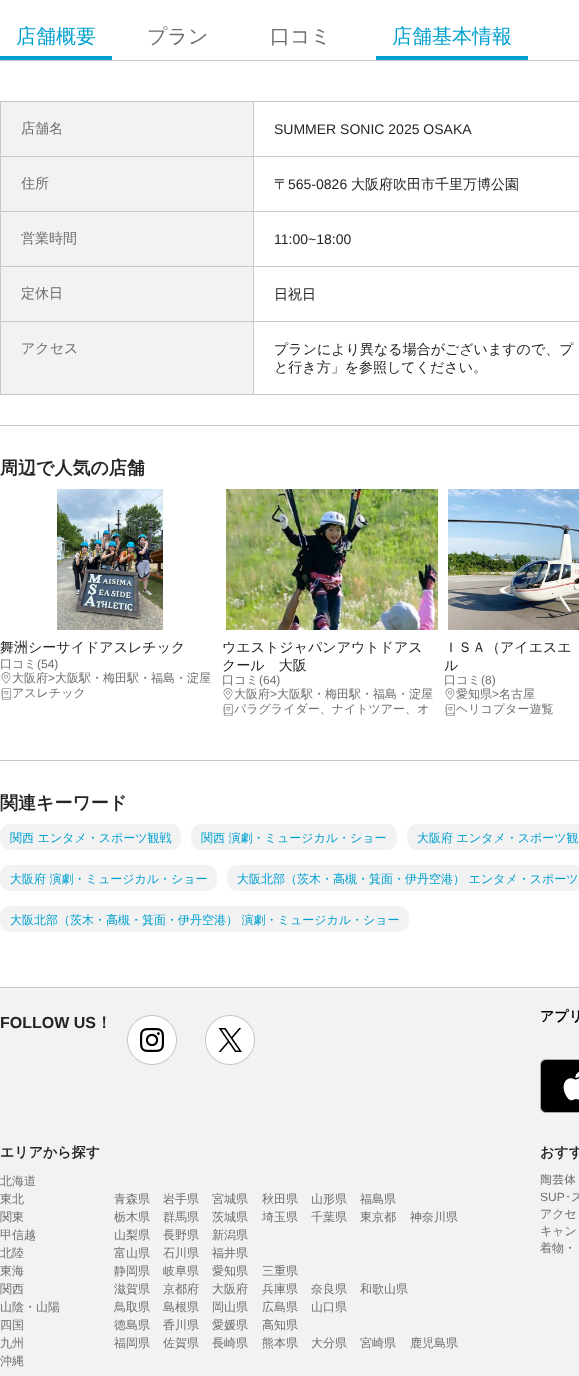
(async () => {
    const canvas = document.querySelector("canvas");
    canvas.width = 579;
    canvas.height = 1376;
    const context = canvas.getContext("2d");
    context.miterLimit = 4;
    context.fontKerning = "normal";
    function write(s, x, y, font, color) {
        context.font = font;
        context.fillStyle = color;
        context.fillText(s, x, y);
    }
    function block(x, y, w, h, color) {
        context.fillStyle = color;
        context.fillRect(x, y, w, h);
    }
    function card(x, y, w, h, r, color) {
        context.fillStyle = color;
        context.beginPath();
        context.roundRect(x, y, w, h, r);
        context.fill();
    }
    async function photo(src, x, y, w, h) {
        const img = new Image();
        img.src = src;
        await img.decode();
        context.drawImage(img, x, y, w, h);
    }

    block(0, 0, 579, 1376, "rgb(255, 255, 255)");
    block(0, 60, 579, 1, "rgb(200, 200, 200)");
    write("店舗概要", 16, 43, "500 20px WenQuanYi Zen Hei", "rgb(0, 160, 208)");
    block(0, 56, 112, 4, "rgb(0, 160, 208)");
    write("プラン", 147, 43, "500 20px WenQuanYi Zen Hei", "rgb(110, 110, 110)");
    write("口コミ", 270, 43, "500 20px WenQuanYi Zen Hei", "rgb(110, 110, 110)");
    write("店舗基本情報", 392, 43, "500 20px WenQuanYi Zen Hei", "rgb(0, 160, 208)");
    block(376, 56, 152, 4, "rgb(0, 160, 208)");
    block(0, 425, 579, 1, "rgb(200, 200, 200)");
    block(0, 101, 579, 1, "rgb(200, 200, 200)");
    block(0, 394, 579, 1, "rgb(200, 200, 200)");
    block(0, 101, 1, 294, "rgb(200, 200, 200)");
    block(1, 102, 252, 54, "rgb(242, 242, 242)");
    block(253, 321, 1, 74, "rgb(200, 200, 200)");
    block(253, 321, 326, 1, "rgb(200, 200, 200)");
    block(253, 266, 1, 56, "rgb(200, 200, 200)");
    block(253, 266, 326, 1, "rgb(200, 200, 200)");
    block(253, 211, 1, 56, "rgb(200, 200, 200)");
    block(253, 211, 326, 1, "rgb(200, 200, 200)");
    block(253, 156, 1, 56, "rgb(200, 200, 200)");
    block(253, 156, 326, 1, "rgb(200, 200, 200)");
    block(253, 101, 1, 56, "rgb(200, 200, 200)");
    block(0, 156, 254, 1, "rgb(200, 200, 200)");
    write("店舗名", 21, 133, "500 14px WenQuanYi Zen Hei", "rgb(110, 110, 110)");
    write("SUMMER SONIC 2025 OSAKA", 274, 134, "14px Liberation Sans", "rgb(36, 36, 36)");
    block(1, 157, 252, 54, "rgb(242, 242, 242)");
    block(0, 211, 254, 1, "rgb(200, 200, 200)");
    write("住所", 21, 188, "500 14px WenQuanYi Zen Hei", "rgb(110, 110, 110)");
    write("〒", 274, 189, "500 14px WenQuanYi Zen Hei", "rgb(36, 36, 36)");
    write("565-0826", 288, 189, "14px Liberation Sans", "rgb(36, 36, 36)");
    write("大阪府吹田市千里万博公園", 351, 189, "500 14px WenQuanYi Zen Hei", "rgb(36, 36, 36)");
    block(1, 212, 252, 54, "rgb(242, 242, 242)");
    block(0, 266, 254, 1, "rgb(200, 200, 200)");
    write("営業時間", 21, 243, "500 14px WenQuanYi Zen Hei", "rgb(110, 110, 110)");
    write("11:00~18:00", 274, 244, "14px Liberation Sans", "rgb(36, 36, 36)");
    block(1, 267, 252, 54, "rgb(242, 242, 242)");
    block(0, 321, 254, 1, "rgb(200, 200, 200)");
    write("定休日", 21, 298, "500 14px WenQuanYi Zen Hei", "rgb(110, 110, 110)");
    write("日祝日", 274, 299, "500 14px WenQuanYi Zen Hei", "rgb(36, 36, 36)");
    block(1, 322, 252, 72, "rgb(242, 242, 242)");
    write("アクセス", 21, 353, "500 14px WenQuanYi Zen Hei", "rgb(110, 110, 110)");
    write("プランにより異なる場合がございますので、プ", 274, 354, "500 14px WenQuanYi Zen Hei", "rgb(36, 36, 36)");
    write("と行き方」を参照してください。", 274, 372, "500 14px WenQuanYi Zen Hei", "rgb(36, 36, 36)");
    write("周辺で人気の店舗", 0, 474, "bold 18px WenQuanYi Zen Hei", "rgb(36, 36, 36)");
    await photo("media/1.png", 56, 489, 108, 141);
    write("舞洲シーサイドアスレチック", 0, 652, "500 14px WenQuanYi Zen Hei", "rgb(36, 36, 36)");
    write("口コミ", 0, 668, "500 12px WenQuanYi Zen Hei", "rgb(110, 110, 110)");
    write("(54)", 37, 668, "12px Liberation Sans", "rgb(110, 110, 110)");
    await photo("media/2.png", 1, 672, 10, 12);
    write("大阪府", 12, 682, "500 12px WenQuanYi Zen Hei", "rgb(110, 110, 110)");
    write(">", 48, 682, "12px Liberation Sans", "rgb(110, 110, 110)");
    write("大阪駅・梅田駅・福島・淀屋", 55, 682, "500 12px WenQuanYi Zen Hei", "rgb(110, 110, 110)");
    await photo("media/3.png", 1, 688, 10, 12);
    write("アスレチック", 12, 697, "500 12px WenQuanYi Zen Hei", "rgb(110, 110, 110)");
    await photo("media/4.png", 226, 489, 212, 141);
    write("ウエストジャパンアウトドアス", 222, 652, "500 14px WenQuanYi Zen Hei", "rgb(36, 36, 36)");
    write("クール　大阪", 222, 670, "500 14px WenQuanYi Zen Hei", "rgb(36, 36, 36)");
    write("口コミ", 222, 684, "500 12px WenQuanYi Zen Hei", "rgb(110, 110, 110)");
    write("(64)", 259, 684, "12px Liberation Sans", "rgb(110, 110, 110)");
    await photo("media/2.png", 223, 688, 10, 12);
    write("大阪府", 234, 698, "500 12px WenQuanYi Zen Hei", "rgb(110, 110, 110)");
    write(">", 270, 698, "12px Liberation Sans", "rgb(110, 110, 110)");
    write("大阪駅・梅田駅・福島・淀屋", 277, 698, "500 12px WenQuanYi Zen Hei", "rgb(110, 110, 110)");
    await photo("media/3.png", 223, 704, 10, 12);
    write("パラグライダー、ナイトツアー、オ", 234, 713, "500 12px WenQuanYi Zen Hei", "rgb(110, 110, 110)");
    await photo("media/5.png", 448, 489, 131, 141);
    write("ＩＳＡ（アイエスエ", 444, 652, "500 14px WenQuanYi Zen Hei", "rgb(36, 36, 36)");
    write("ル", 444, 670, "500 14px WenQuanYi Zen Hei", "rgb(36, 36, 36)");
    write("口コミ", 444, 684, "500 12px WenQuanYi Zen Hei", "rgb(110, 110, 110)");
    write("(8)", 481, 684, "12px Liberation Sans", "rgb(110, 110, 110)");
    await photo("media/2.png", 445, 688, 10, 12);
    write("愛知県", 456, 698, "500 12px WenQuanYi Zen Hei", "rgb(110, 110, 110)");
    write(">", 492, 698, "12px Liberation Sans", "rgb(110, 110, 110)");
    write("名古屋", 499, 698, "500 12px WenQuanYi Zen Hei", "rgb(110, 110, 110)");
    await photo("media/3.png", 445, 704, 10, 12);
    write("ヘリコプター遊覧", 456, 713, "500 12px WenQuanYi Zen Hei", "rgb(110, 110, 110)");
    block(0, 760, 579, 1, "rgb(200, 200, 200)");
    write("関連キーワード", 0, 809, "bold 18px WenQuanYi Zen Hei", "rgb(36, 36, 36)");
    card(0, 824, 181, 26, 10, "rgb(242, 242, 242)");
    write("関西 エンタメ・スポーツ観戦", 10, 842, "500 12px WenQuanYi Zen Hei", "rgb(0, 160, 208)");
    card(191, 824, 206, 26, 10, "rgb(242, 242, 242)");
    write("関西 演劇・ミュージカル・ショー", 201, 842, "500 12px WenQuanYi Zen Hei", "rgb(0, 160, 208)");
    card(407, 824, 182, 26, 10, "rgb(242, 242, 242)");
    write("大阪府 エンタメ・スポーツ観", 417, 842, "500 12px WenQuanYi Zen Hei", "rgb(0, 160, 208)");
    card(0, 865, 217, 26, 10, "rgb(242, 242, 242)");
    write("大阪府 演劇・ミュージカル・ショー", 10, 883, "500 12px WenQuanYi Zen Hei", "rgb(0, 160, 208)");
    card(227, 865, 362, 26, 10, "rgb(242, 242, 242)");
    write("大阪北部（茨木・高槻・箕面・伊丹空港） エンタメ・スポーツ", 237, 883, "500 12px WenQuanYi Zen Hei", "rgb(0, 160, 208)");
    card(0, 906, 409, 26, 10, "rgb(242, 242, 242)");
    write("大阪北部（茨木・高槻・箕面・伊丹空港） 演劇・ミュージカル・ショー", 10, 924, "500 12px WenQuanYi Zen Hei", "rgb(0, 160, 208)");
    block(0, 988, 579, 388, "rgb(242, 242, 242)");
    block(0, 987, 579, 1, "rgb(200, 200, 200)");
    write("FOLLOW US", 0, 1028, "bold 16px Liberation Sans", "rgb(36, 36, 36)");
    write("！", 96, 1028, "bold 16px WenQuanYi Zen Hei", "rgb(36, 36, 36)");
    await photo("media/6.png", 127, 1015, 50, 50);
    await photo("media/7.png", 205, 1015, 50, 50);
    write("アプリ", 540, 1021, "bold 14px WenQuanYi Zen Hei", "rgb(0, 0, 0)");
    await photo("media/8.png", 540, 1059, 39, 54);
    write("エリアから探す", 0, 1157, "bold 14px WenQuanYi Zen Hei", "rgb(36, 36, 36)");
    write("北海道", 0, 1185, "500 12px WenQuanYi Zen Hei", "rgb(110, 110, 110)");
    write("東北", 0, 1203, "500 12px WenQuanYi Zen Hei", "rgb(110, 110, 110)");
    write("青森県", 114, 1203, "500 12px WenQuanYi Zen Hei", "rgb(110, 110, 110)");
    write("岩手県", 163, 1203, "500 12px WenQuanYi Zen Hei", "rgb(110, 110, 110)");
    write("宮城県", 212, 1203, "500 12px WenQuanYi Zen Hei", "rgb(110, 110, 110)");
    write("秋田県", 262, 1203, "500 12px WenQuanYi Zen Hei", "rgb(110, 110, 110)");
    write("山形県", 311, 1203, "500 12px WenQuanYi Zen Hei", "rgb(110, 110, 110)");
    write("福島県", 360, 1203, "500 12px WenQuanYi Zen Hei", "rgb(110, 110, 110)");
    write("関東", 0, 1221, "500 12px WenQuanYi Zen Hei", "rgb(110, 110, 110)");
    write("栃木県", 114, 1221, "500 12px WenQuanYi Zen Hei", "rgb(110, 110, 110)");
    write("群馬県", 163, 1221, "500 12px WenQuanYi Zen Hei", "rgb(110, 110, 110)");
    write("茨城県", 212, 1221, "500 12px WenQuanYi Zen Hei", "rgb(110, 110, 110)");
    write("埼玉県", 262, 1221, "500 12px WenQuanYi Zen Hei", "rgb(110, 110, 110)");
    write("千葉県", 311, 1221, "500 12px WenQuanYi Zen Hei", "rgb(110, 110, 110)");
    write("東京都", 360, 1221, "500 12px WenQuanYi Zen Hei", "rgb(110, 110, 110)");
    write("神奈川県", 410, 1221, "500 12px WenQuanYi Zen Hei", "rgb(110, 110, 110)");
    write("甲信越", 0, 1239, "500 12px WenQuanYi Zen Hei", "rgb(110, 110, 110)");
    write("山梨県", 114, 1239, "500 12px WenQuanYi Zen Hei", "rgb(110, 110, 110)");
    write("長野県", 163, 1239, "500 12px WenQuanYi Zen Hei", "rgb(110, 110, 110)");
    write("新潟県", 212, 1239, "500 12px WenQuanYi Zen Hei", "rgb(110, 110, 110)");
    write("北陸", 0, 1257, "500 12px WenQuanYi Zen Hei", "rgb(110, 110, 110)");
    write("富山県", 114, 1257, "500 12px WenQuanYi Zen Hei", "rgb(110, 110, 110)");
    write("石川県", 163, 1257, "500 12px WenQuanYi Zen Hei", "rgb(110, 110, 110)");
    write("福井県", 212, 1257, "500 12px WenQuanYi Zen Hei", "rgb(110, 110, 110)");
    write("東海", 0, 1275, "500 12px WenQuanYi Zen Hei", "rgb(110, 110, 110)");
    write("静岡県", 114, 1275, "500 12px WenQuanYi Zen Hei", "rgb(110, 110, 110)");
    write("岐阜県", 163, 1275, "500 12px WenQuanYi Zen Hei", "rgb(110, 110, 110)");
    write("愛知県", 212, 1275, "500 12px WenQuanYi Zen Hei", "rgb(110, 110, 110)");
    write("三重県", 262, 1275, "500 12px WenQuanYi Zen Hei", "rgb(110, 110, 110)");
    write("関西", 0, 1293, "500 12px WenQuanYi Zen Hei", "rgb(110, 110, 110)");
    write("滋賀県", 114, 1293, "500 12px WenQuanYi Zen Hei", "rgb(110, 110, 110)");
    write("京都府", 163, 1293, "500 12px WenQuanYi Zen Hei", "rgb(110, 110, 110)");
    write("大阪府", 212, 1293, "500 12px WenQuanYi Zen Hei", "rgb(110, 110, 110)");
    write("兵庫県", 262, 1293, "500 12px WenQuanYi Zen Hei", "rgb(110, 110, 110)");
    write("奈良県", 311, 1293, "500 12px WenQuanYi Zen Hei", "rgb(110, 110, 110)");
    write("和歌山県", 360, 1293, "500 12px WenQuanYi Zen Hei", "rgb(110, 110, 110)");
    write("山陰・山陽", 0, 1311, "500 12px WenQuanYi Zen Hei", "rgb(110, 110, 110)");
    write("鳥取県", 114, 1311, "500 12px WenQuanYi Zen Hei", "rgb(110, 110, 110)");
    write("島根県", 163, 1311, "500 12px WenQuanYi Zen Hei", "rgb(110, 110, 110)");
    write("岡山県", 212, 1311, "500 12px WenQuanYi Zen Hei", "rgb(110, 110, 110)");
    write("広島県", 262, 1311, "500 12px WenQuanYi Zen Hei", "rgb(110, 110, 110)");
    write("山口県", 311, 1311, "500 12px WenQuanYi Zen Hei", "rgb(110, 110, 110)");
    write("四国", 0, 1329, "500 12px WenQuanYi Zen Hei", "rgb(110, 110, 110)");
    write("徳島県", 114, 1329, "500 12px WenQuanYi Zen Hei", "rgb(110, 110, 110)");
    write("香川県", 163, 1329, "500 12px WenQuanYi Zen Hei", "rgb(110, 110, 110)");
    write("愛媛県", 212, 1329, "500 12px WenQuanYi Zen Hei", "rgb(110, 110, 110)");
    write("高知県", 262, 1329, "500 12px WenQuanYi Zen Hei", "rgb(110, 110, 110)");
    write("九州", 0, 1347, "500 12px WenQuanYi Zen Hei", "rgb(110, 110, 110)");
    write("福岡県", 114, 1347, "500 12px WenQuanYi Zen Hei", "rgb(110, 110, 110)");
    write("佐賀県", 163, 1347, "500 12px WenQuanYi Zen Hei", "rgb(110, 110, 110)");
    write("長崎県", 212, 1347, "500 12px WenQuanYi Zen Hei", "rgb(110, 110, 110)");
    write("熊本県", 262, 1347, "500 12px WenQuanYi Zen Hei", "rgb(110, 110, 110)");
    write("大分県", 311, 1347, "500 12px WenQuanYi Zen Hei", "rgb(110, 110, 110)");
    write("宮崎県", 360, 1347, "500 12px WenQuanYi Zen Hei", "rgb(110, 110, 110)");
    write("鹿児島県", 410, 1347, "500 12px WenQuanYi Zen Hei", "rgb(110, 110, 110)");
    write("沖縄", 0, 1365, "500 12px WenQuanYi Zen Hei", "rgb(110, 110, 110)");
    write("おすす", 540, 1157, "bold 14px WenQuanYi Zen Hei", "rgb(36, 36, 36)");
    write("陶芸体", 540, 1184, "12px IPAGothic", "rgb(110, 110, 110)");
    write("SUP", 540, 1201, "12px Liberation Sans", "rgb(110, 110, 110)");
    write("･", 565, 1201, "12px IPAGothic", "rgb(110, 110, 110)");
    write("ス", 571, 1201, "500 12px WenQuanYi Zen Hei", "rgb(110, 110, 110)");
    write("アクセ", 540, 1218, "500 12px WenQuanYi Zen Hei", "rgb(110, 110, 110)");
    write("キャン", 540, 1235, "500 12px WenQuanYi Zen Hei", "rgb(110, 110, 110)");
    write("着物・", 540, 1252, "500 12px WenQuanYi Zen Hei", "rgb(110, 110, 110)");
})();
